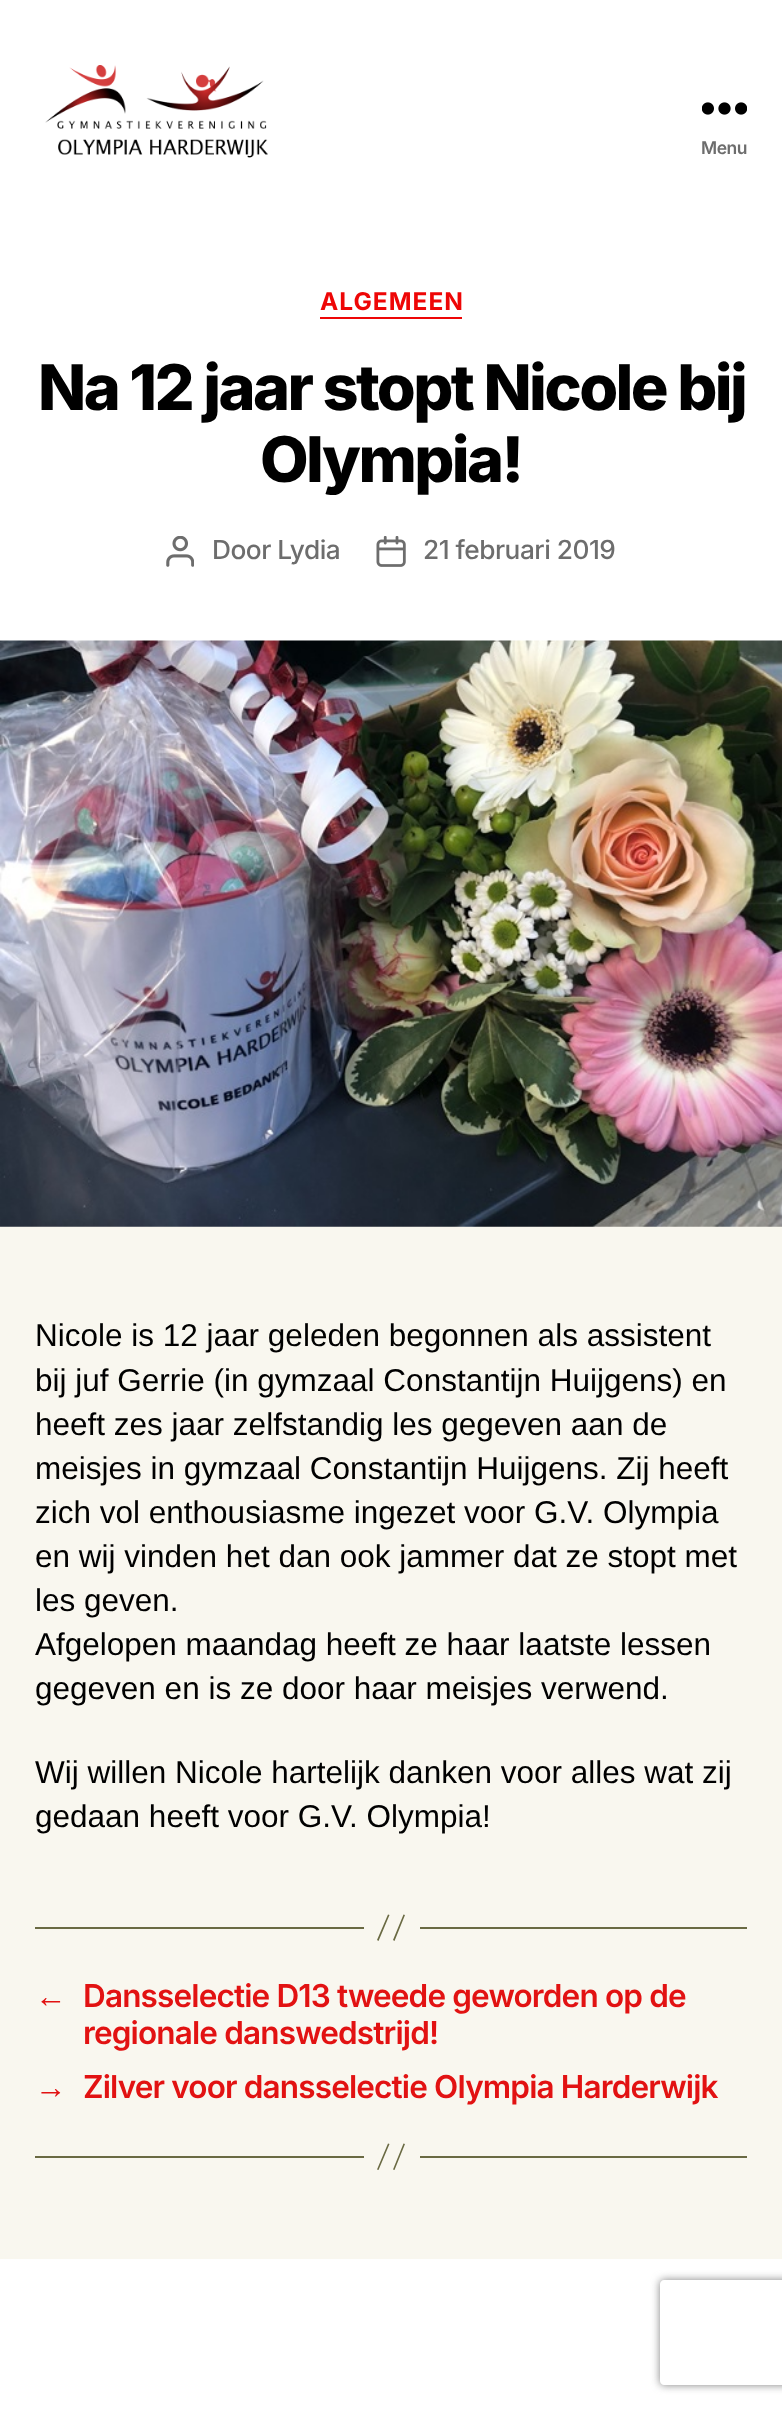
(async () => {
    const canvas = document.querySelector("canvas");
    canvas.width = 782;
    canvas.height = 2409;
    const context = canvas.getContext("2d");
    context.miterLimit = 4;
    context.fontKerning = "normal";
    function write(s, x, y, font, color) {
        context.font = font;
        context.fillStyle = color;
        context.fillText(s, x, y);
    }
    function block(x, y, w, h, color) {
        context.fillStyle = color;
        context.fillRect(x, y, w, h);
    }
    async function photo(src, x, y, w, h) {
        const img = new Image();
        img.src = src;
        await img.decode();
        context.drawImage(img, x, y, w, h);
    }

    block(0, 0, 782, 2409, "rgb(249, 247, 239)");
    block(0, 0, 782, 641, "rgb(255, 255, 255)");
    await photo("media/1.png", 45, 65, 223, 93);
    await photo("media/2.png", 702, 102, 45, 13);
    context.letterSpacing = "-0.5px";
    write("Menu", 701, 154, "600 17.5px Inter", "rgb(109, 109, 109)");
    block(320, 317, 142, 2, "rgb(238, 6, 6)");
    context.letterSpacing = "1px";
    write("ALGEMEEN", 320, 310, "bold 24.5px Inter", "rgb(238, 6, 6)");
    context.letterSpacing = "-2.6px";
    write("Na 12 jaar stopt Nicole bij", 38, 410, "800 63px Inter", "rgb(0, 0, 0)");
    write("Olympia!", 260, 482, "800 63px Inter", "rgb(0, 0, 0)");
    await photo("media/3.png", 166, 536, 28, 31);
    context.letterSpacing = "-0.5px";
    write("Door Lydia", 212, 559, "500 26.25px Inter", "rgb(109, 109, 109)");
    await photo("media/4.png", 376, 536, 30, 31);
    write("21 februari 2019", 423, 559, "500 26.25px Inter", "rgb(109, 109, 109)");
    await photo("media/5.png", 0, 640, 782, 587);
    context.letterSpacing = "0px";
    write("Nicole is 12 jaar geleden begonnen als assistent", 35, 1346, "31.5px Liberation Sans", "rgb(0, 0, 0)");
    write("bij juf Gerrie (in gymzaal Constantijn Huijgens) en", 35, 1391, "31.5px Liberation Sans", "rgb(0, 0, 0)");
    write("heeft zes jaar zelfstandig les gegeven aan de", 35, 1435, "31.5px Liberation Sans", "rgb(0, 0, 0)");
    write("meisjes in gymzaal Constantijn Huijgens. Zij heeft", 35, 1479, "31.5px Liberation Sans", "rgb(0, 0, 0)");
    write("zich vol enthousiasme ingezet voor G.V. Olympia", 35, 1523, "31.5px Liberation Sans", "rgb(0, 0, 0)");
    write("en wij vinden het dan ook jammer dat ze stopt met", 35, 1567, "31.5px Liberation Sans", "rgb(0, 0, 0)");
    write("les geven.", 35, 1611, "31.5px Liberation Sans", "rgb(0, 0, 0)");
    write("Afgelopen maandag heeft ze haar laatste lessen", 35, 1655, "31.5px Liberation Sans", "rgb(0, 0, 0)");
    write("gegeven en is ze door haar meisjes verwend.", 35, 1699, "31.5px Liberation Sans", "rgb(0, 0, 0)");
    write("Wij willen Nicole hartelijk danken voor alles wat zij", 35, 1783, "31.5px Liberation Sans", "rgb(0, 0, 0)");
    write("gedaan heeft voor G.V. Olympia!", 35, 1827, "31.5px Liberation Sans", "rgb(0, 0, 0)");
    block(420, 1927, 327, 2, "rgb(106, 106, 67)");
    block(35, 1927, 329, 2, "rgb(106, 106, 67)");
    context.beginPath();
    context.moveTo(388, 1914.5);
    context.lineTo(389.5, 1915);
    context.lineTo(378.5, 1941);
    context.lineTo(377, 1940);
    context.closePath();
    context.moveTo(403.5, 1914.5);
    context.lineTo(405, 1915);
    context.lineTo(394.5, 1941);
    context.lineTo(393, 1940);
    context.closePath();
    context.fill();
    context.letterSpacing = "-0.85px";
    write("←", 35, 2007, "bold 31.5px Liberation Serif", "rgb(226, 18, 18)");
    write("Dansselectie D13 tweede geworden op de", 83, 2007, "600 31.5px Inter", "rgb(226, 18, 18)");
    write("regionale danswedstrijd!", 83, 2044, "600 31.5px Inter", "rgb(226, 18, 18)");
    write("→", 35, 2098, "bold 31.5px Liberation Serif", "rgb(226, 18, 18)");
    write("Zilver voor dansselectie Olympia Harderwijk", 83, 2098, "600 31.5px Inter", "rgb(226, 18, 18)");
    block(420, 2156, 327, 2, "rgb(106, 106, 67)");
    block(35, 2156, 329, 2, "rgb(106, 106, 67)");
    context.beginPath();
    context.moveTo(388, 2143.5);
    context.lineTo(389.5, 2144);
    context.lineTo(378.5, 2170);
    context.lineTo(377, 2169.5);
    context.closePath();
    context.moveTo(403.5, 2143.5);
    context.lineTo(405, 2144);
    context.lineTo(394.5, 2170);
    context.lineTo(393, 2169.5);
    context.closePath();
    context.fill();
    block(0, 2259, 782, 150, "rgb(255, 255, 255)");
    context.save();
    context.beginPath();
    context.moveTo(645, 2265);
    context.lineTo(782, 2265);
    context.lineTo(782, 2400);
    context.lineTo(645, 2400);
    context.closePath();
    context.moveTo(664, 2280);
    context.lineTo(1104, 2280);
    context.bezierCurveTo(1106, 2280, 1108, 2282, 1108, 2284);
    context.lineTo(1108, 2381);
    context.bezierCurveTo(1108, 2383, 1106, 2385, 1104, 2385);
    context.lineTo(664, 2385);
    context.bezierCurveTo(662, 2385, 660, 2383, 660, 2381);
    context.lineTo(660, 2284);
    context.bezierCurveTo(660, 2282, 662, 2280, 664, 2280);
    context.closePath();
    context.clip("evenodd");
    context.fillStyle = "rgb(128, 128, 128)";
    context.filter = "blur(4.5px)";
    context.beginPath();
    context.roundRect(660, 2280, 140, 105, 4);
    context.fill();
    context.filter = "none";
    context.restore();
})();
